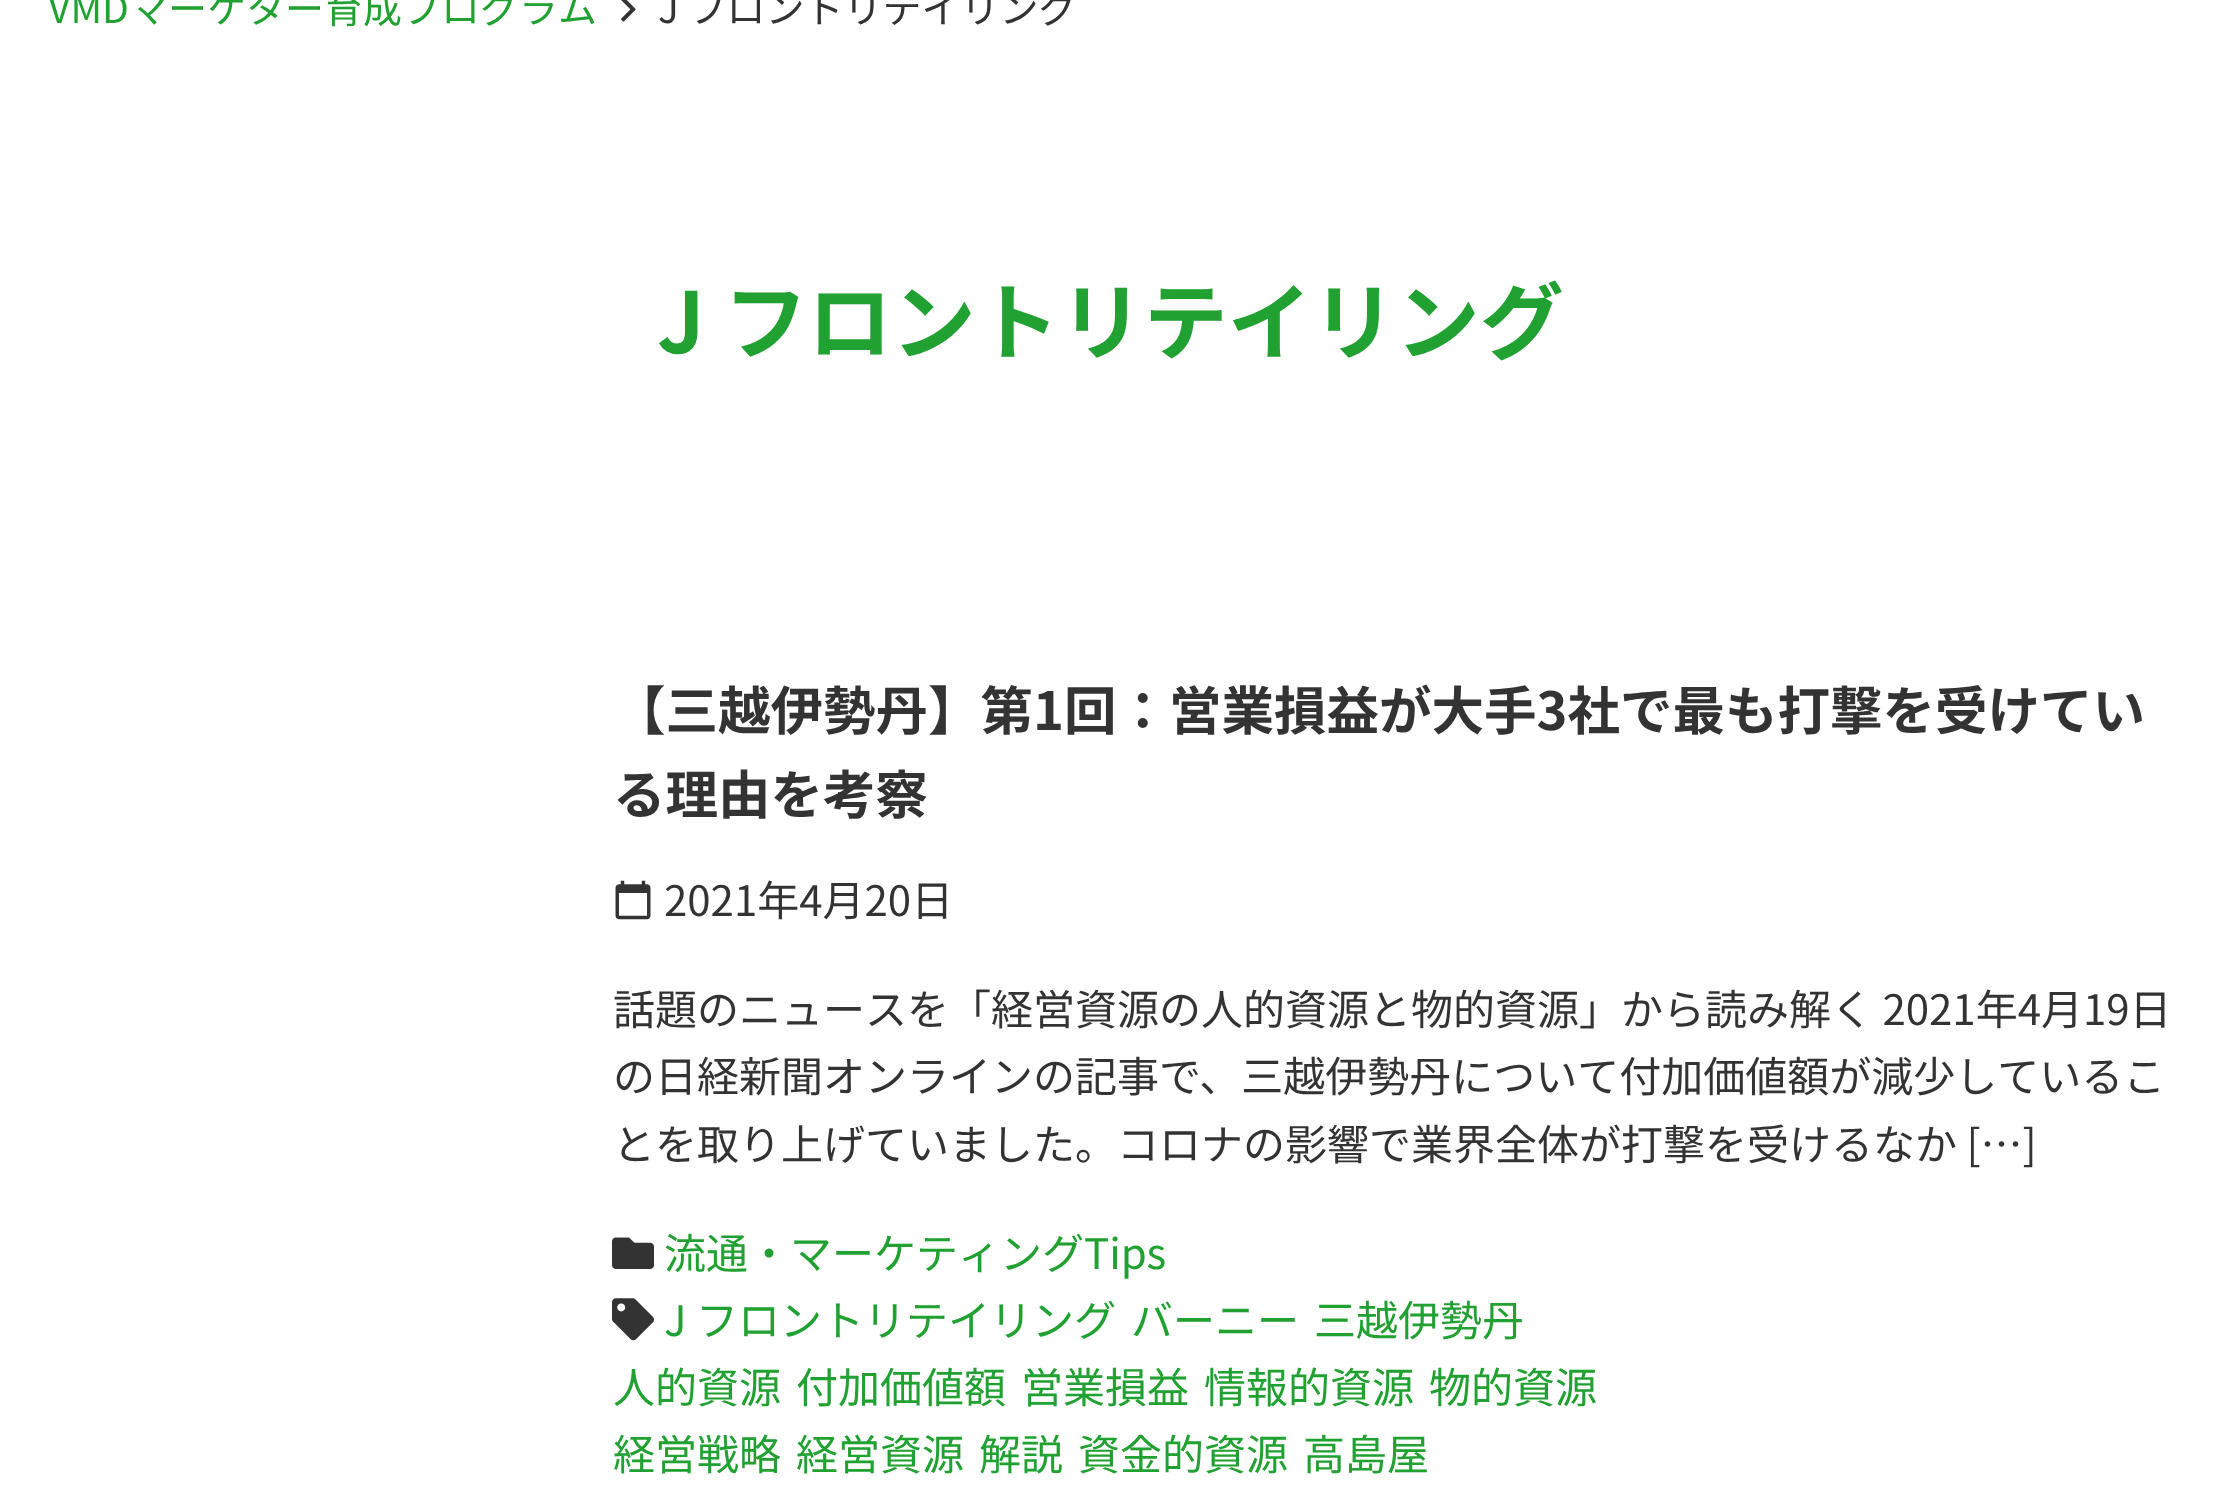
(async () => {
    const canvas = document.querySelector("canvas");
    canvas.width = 2219;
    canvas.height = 1502;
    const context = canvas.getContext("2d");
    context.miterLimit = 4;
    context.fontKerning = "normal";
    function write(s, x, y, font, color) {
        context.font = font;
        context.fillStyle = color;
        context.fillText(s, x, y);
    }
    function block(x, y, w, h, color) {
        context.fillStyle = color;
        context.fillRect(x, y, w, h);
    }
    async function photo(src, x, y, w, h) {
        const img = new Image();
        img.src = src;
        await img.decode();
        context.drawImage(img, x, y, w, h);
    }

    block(0, 0, 2219, 1502, "rgb(255, 255, 255)");
    write("VMDマーケター育成プログラム", 48, 23, "39px Noto Sans JP", "rgb(32, 161, 49)");
    await photo("media/1.png", 621, 0, 15, 22);
    write("J フロントリテイリング", 658, 23, "39px Noto Sans JP", "rgb(51, 51, 51)");
    write("J フロントリテイリング", 657, 353, "bold 84px Noto Sans JP", "rgb(32, 161, 49)");
    write("【三越伊勢丹】第1回：営業損益が大手3社で最も打撃を受けてい", 613, 730, "bold 52.5px Noto Sans JP", "rgb(51, 51, 51)");
    write("る理由を考察", 613, 814, "bold 52.5px Noto Sans JP", "rgb(51, 51, 51)");
    await photo("media/2.png", 615, 880, 36, 40);
    write("2021年4月20日", 664, 916, "42px Noto Sans JP", "rgb(51, 51, 51)");
    write("話題のニュースを「経営資源の人的資源と物的資源」から読み解く 2021年4月19日", 613, 1025, "42px Noto Sans JP", "rgb(51, 51, 51)");
    write("の日経新聞オンラインの記事で、三越伊勢丹について付加価値額が減少しているこ", 613, 1092, "42px Noto Sans JP", "rgb(51, 51, 51)");
    write("とを取り上げていました。コロナの影響で業界全体が打撃を受けるなか […]", 613, 1160, "42px Noto Sans JP", "rgb(51, 51, 51)");
    await photo("media/3.png", 612, 1237, 42, 32);
    write("流通・マーケティングTips", 664, 1269, "42px Noto Sans JP", "rgb(32, 161, 49)");
    await photo("media/4.png", 612, 1298, 42, 43);
    write("J フロントリテイリング", 664, 1336, "42px Noto Sans JP", "rgb(32, 161, 49)");
    write("バーニー", 1131, 1336, "42px Noto Sans JP", "rgb(32, 161, 49)");
    write("三越伊勢丹", 1314, 1336, "42px Noto Sans JP", "rgb(32, 161, 49)");
    write("人的資源", 613, 1403, "42px Noto Sans JP", "rgb(32, 161, 49)");
    write("付加価値額", 796, 1403, "42px Noto Sans JP", "rgb(32, 161, 49)");
    write("営業損益", 1021, 1403, "42px Noto Sans JP", "rgb(32, 161, 49)");
    write("情報的資源", 1204, 1403, "42px Noto Sans JP", "rgb(32, 161, 49)");
    write("物的資源", 1429, 1403, "42px Noto Sans JP", "rgb(32, 161, 49)");
    write("経営戦略", 613, 1470, "42px Noto Sans JP", "rgb(32, 161, 49)");
    write("経営資源", 796, 1470, "42px Noto Sans JP", "rgb(32, 161, 49)");
    write("解説", 979, 1470, "42px Noto Sans JP", "rgb(32, 161, 49)");
    write("資金的資源", 1078, 1470, "42px Noto Sans JP", "rgb(32, 161, 49)");
    write("高島屋", 1303, 1470, "42px Noto Sans JP", "rgb(32, 161, 49)");
})();
